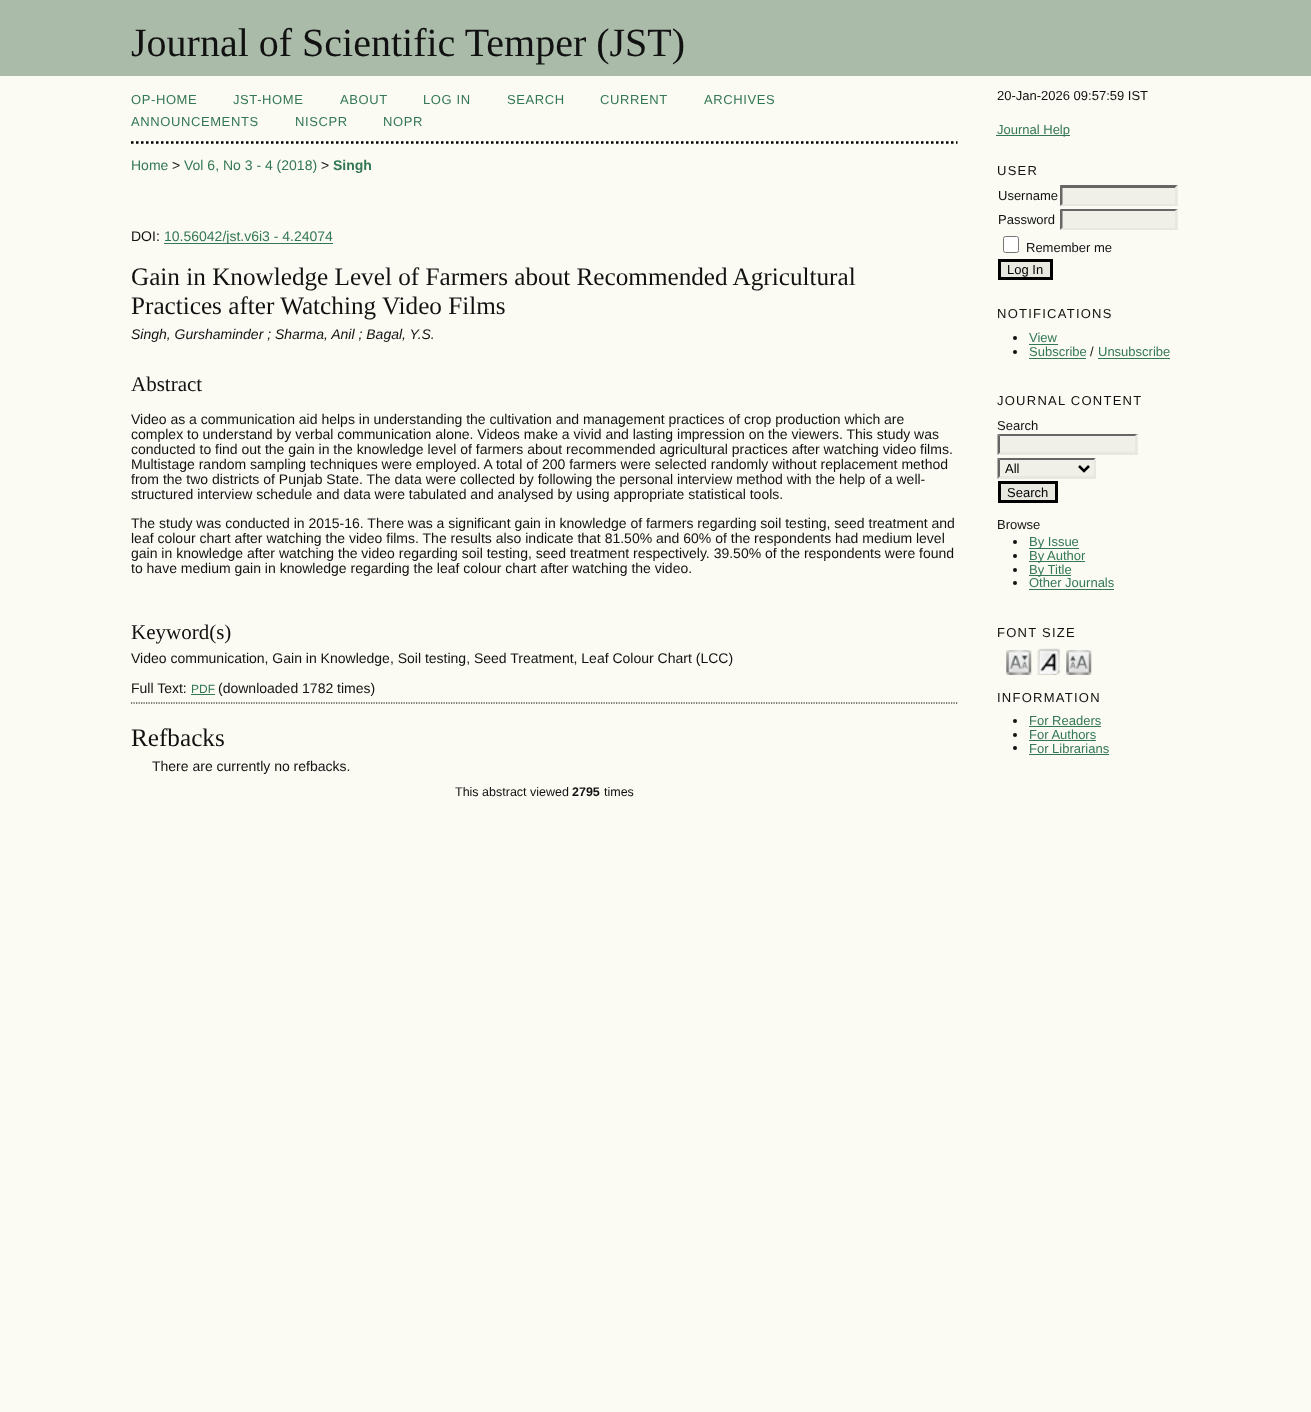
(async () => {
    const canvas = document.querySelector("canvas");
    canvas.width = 1311;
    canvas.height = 1412;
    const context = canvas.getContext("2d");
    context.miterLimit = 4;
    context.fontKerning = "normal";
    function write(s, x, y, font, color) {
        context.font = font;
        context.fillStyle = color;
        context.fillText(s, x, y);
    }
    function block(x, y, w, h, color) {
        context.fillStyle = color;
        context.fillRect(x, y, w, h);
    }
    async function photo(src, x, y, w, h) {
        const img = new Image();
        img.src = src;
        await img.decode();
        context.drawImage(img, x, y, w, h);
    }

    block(0, 0, 1311, 1412, "rgb(251, 251, 243)");
    block(0, 0, 1311, 76, "rgb(170, 187, 170)");
    write("Journal of Scientific Temper (JST)", 131, 56, "40px Liberation Serif", "rgb(17, 17, 17)");
    context.beginPath();
    context.moveTo(131, 142.5);
    context.lineTo(957.5, 142.5);
    context.strokeStyle = "rgb(0, 0, 0)";
    context.lineWidth = 2.5;
    context.setLineDash([2.5, 2.5]);
    context.stroke();
    context.letterSpacing = "0.6px";
    write("OP-HOME", 131, 104, "13px Liberation Sans", "rgb(51, 119, 85)");
    write("JST-HOME", 233, 104, "13px Liberation Sans", "rgb(51, 119, 85)");
    write("ABOUT", 340, 104, "13px Liberation Sans", "rgb(51, 119, 85)");
    write("LOG IN", 423, 104, "13px Liberation Sans", "rgb(51, 119, 85)");
    write("SEARCH", 507, 104, "13px Liberation Sans", "rgb(51, 119, 85)");
    write("CURRENT", 600, 104, "13px Liberation Sans", "rgb(51, 119, 85)");
    write("ARCHIVES", 704, 104, "13px Liberation Sans", "rgb(51, 119, 85)");
    write("ANNOUNCEMENTS", 131, 126, "13px Liberation Sans", "rgb(51, 119, 85)");
    write("NISCPR", 295, 126, "13px Liberation Sans", "rgb(51, 119, 85)");
    write("NOPR", 383, 126, "13px Liberation Sans", "rgb(51, 119, 85)");
    context.letterSpacing = "0px";
    write("Home", 131, 170, "14px Liberation Sans", "rgb(51, 119, 85)");
    write(">", 172, 170, "14px Liberation Sans", "rgb(17, 17, 17)");
    write("Vol 6, No 3 - 4 (2018)", 184, 170, "14px Liberation Sans", "rgb(51, 119, 85)");
    write(">", 321, 170, "14px Liberation Sans", "rgb(17, 17, 17)");
    write("Singh", 333, 170, "bold 14px Liberation Sans", "rgb(51, 119, 85)");
    write("DOI:", 131, 241, "14px Liberation Sans", "rgb(17, 17, 17)");
    block(164, 243, 169, 1, "rgb(51, 119, 85)");
    write("10.56042/jst.v6i3 - 4.24074", 164, 241, "14px Liberation Sans", "rgb(51, 119, 85)");
    write("Gain in Knowledge Level of Farmers about Recommended Agricultural", 131, 285, "25.2px Liberation Serif", "rgb(17, 17, 17)");
    write("Practices after Watching Video Films", 131, 314, "25.2px Liberation Serif", "rgb(17, 17, 17)");
    write("Singh, Gurshaminder ; Sharma, Anil ; Bagal, Y.S.", 131, 339, "italic 14px Liberation Sans", "rgb(17, 17, 17)");
    write("Abstract", 131, 391, "21px Liberation Serif", "rgb(17, 17, 17)");
    write("Video as a communication aid helps in understanding the cultivation and management practices of crop production which are", 131, 424, "14px Liberation Sans", "rgb(17, 17, 17)");
    write("complex to understand by verbal communication alone. Videos make a vivid and lasting impression on the viewers. This study was", 131, 439, "14px Liberation Sans", "rgb(17, 17, 17)");
    write("conducted to find out the gain in the knowledge level of farmers about recommended agricultural practices after watching video films.", 131, 454, "14px Liberation Sans", "rgb(17, 17, 17)");
    write("Multistage random sampling techniques were employed. A total of 200 farmers were selected randomly without replacement method", 131, 469, "14px Liberation Sans", "rgb(17, 17, 17)");
    write("from the two districts of Punjab State. The data were collected by following the personal interview method with the help of a well-", 131, 484, "14px Liberation Sans", "rgb(17, 17, 17)");
    write("structured interview schedule and data were tabulated and analysed by using appropriate statistical tools.", 131, 499, "14px Liberation Sans", "rgb(17, 17, 17)");
    write("The study was conducted in 2015-16. There was a significant gain in knowledge of farmers regarding soil testing, seed treatment and", 131, 528, "14px Liberation Sans", "rgb(17, 17, 17)");
    write("leaf colour chart after watching the video films. The results also indicate that 81.50% and 60% of the respondents had medium level", 131, 543, "14px Liberation Sans", "rgb(17, 17, 17)");
    write("gain in knowledge after watching the video regarding soil testing, seed treatment respectively. 39.50% of the respondents were found", 131, 558, "14px Liberation Sans", "rgb(17, 17, 17)");
    write("to have medium gain in knowledge regarding the leaf colour chart after watching the video.", 131, 573, "14px Liberation Sans", "rgb(17, 17, 17)");
    write("Keyword(s)", 131, 639, "21px Liberation Serif", "rgb(17, 17, 17)");
    write("Video communication, Gain in Knowledge, Soil testing, Seed Treatment, Leaf Colour Chart (LCC)", 131, 663, "14px Liberation Sans", "rgb(17, 17, 17)");
    write("Full Text:", 131, 693, "14px Liberation Sans", "rgb(17, 17, 17)");
    write("PDF", 191, 693, "12px Liberation Sans", "rgb(51, 119, 85)");
    block(191, 694, 24, 1, "rgb(51, 119, 85)");
    write("(downloaded 1782 times)", 218, 693, "14px Liberation Sans", "rgb(17, 17, 17)");
    context.beginPath();
    context.moveTo(131, 703);
    context.lineTo(957.5, 703);
    context.lineWidth = 1.2;
    context.setLineDash([1.25, 1.25]);
    context.stroke();
    write("Refbacks", 131, 746, "25.2px Liberation Serif", "rgb(17, 17, 17)");
    write("There are currently no refbacks.", 152, 771, "14px Liberation Sans", "rgb(17, 17, 17)");
    write("This abstract viewed", 455, 796, "12.5px Liberation Sans", "rgb(17, 17, 17)");
    write("2795", 572, 796, "bold 12.5px Liberation Sans", "rgb(17, 17, 17)");
    write("times", 604, 796, "12.5px Liberation Sans", "rgb(17, 17, 17)");
    write("20-Jan-2026 09:57:59 IST", 997, 100, "13px Liberation Sans", "rgb(17, 17, 17)");
    block(996, 135, 74, 1, "rgb(51, 119, 85)");
    write("Journal Help", 997, 134, "13px Liberation Sans", "rgb(51, 119, 85)");
    context.letterSpacing = "1.25px";
    write("USER", 997, 175, "13px Liberation Sans", "rgb(17, 17, 17)");
    context.letterSpacing = "0px";
    write("Username", 998, 200, "13px Liberation Sans", "rgb(17, 17, 17)");
    block(1060, 185, 118, 21, "rgb(240, 240, 232)");
    context.fillStyle = "rgb(102, 102, 102)";
    context.beginPath();
    context.moveTo(1060, 185);
    context.lineTo(1178, 185);
    context.lineTo(1175, 188);
    context.lineTo(1062, 188);
    context.closePath();
    context.fill();
    context.fillStyle = "rgb(232, 232, 225)";
    context.beginPath();
    context.moveTo(1177.5, 185);
    context.lineTo(1177.5, 206);
    context.lineTo(1175, 204);
    context.lineTo(1175, 187.5);
    context.closePath();
    context.fill();
    context.beginPath();
    context.moveTo(1178, 206);
    context.lineTo(1060, 206);
    context.lineTo(1062, 204);
    context.lineTo(1175, 204);
    context.closePath();
    context.fill();
    context.fillStyle = "rgb(102, 102, 102)";
    context.beginPath();
    context.moveTo(1060, 206);
    context.lineTo(1060, 185);
    context.lineTo(1062.5, 187.5);
    context.lineTo(1062.5, 204);
    context.closePath();
    context.fill();
    write("Password", 998, 224, "13px Liberation Sans", "rgb(17, 17, 17)");
    block(1060, 209, 118, 21, "rgb(240, 240, 232)");
    context.fillStyle = "rgb(102, 102, 102)";
    context.beginPath();
    context.moveTo(1060, 209);
    context.lineTo(1178, 209);
    context.lineTo(1175, 211);
    context.lineTo(1062, 211);
    context.closePath();
    context.fill();
    context.fillStyle = "rgb(232, 232, 225)";
    context.beginPath();
    context.moveTo(1177.5, 209);
    context.lineTo(1177.5, 230);
    context.lineTo(1175, 227.5);
    context.lineTo(1175, 211);
    context.closePath();
    context.fill();
    context.beginPath();
    context.moveTo(1178, 230);
    context.lineTo(1060, 230);
    context.lineTo(1062, 228);
    context.lineTo(1175, 228);
    context.closePath();
    context.fill();
    context.fillStyle = "rgb(102, 102, 102)";
    context.beginPath();
    context.moveTo(1060, 230);
    context.lineTo(1060, 209);
    context.lineTo(1062.5, 211);
    context.lineTo(1062.5, 227.5);
    context.closePath();
    context.fill();
    context.fillStyle = "rgb(255, 255, 255)";
    context.beginPath();
    context.roundRect(1003.5, 236.5, 15, 16, 2);
    context.fill();
    context.strokeStyle = "rgb(118, 118, 118)";
    context.lineWidth = 1;
    context.setLineDash([]);
    context.stroke();
    write("Remember me", 1026, 252, "13px Liberation Sans", "rgb(17, 17, 17)");
    context.fillStyle = "rgb(232, 232, 225)";
    context.beginPath();
    context.rect(999.5, 260.5, 52, 18);
    context.fill();
    context.strokeStyle = "rgb(0, 0, 0)";
    context.lineWidth = 3;
    context.stroke();
    write("Log In", 1007, 274, "13px Liberation Sans", "rgb(0, 0, 0)");
    context.letterSpacing = "1.25px";
    write("NOTIFICATIONS", 997, 318, "13px Liberation Sans", "rgb(17, 17, 17)");
    context.beginPath();
    context.arc(1015, 338, 2, 0, Math.PI * 2);
    context.fill();
    context.letterSpacing = "0px";
    write("View", 1029, 342, "13px Liberation Sans", "rgb(51, 119, 85)");
    block(1029, 344, 29, 1, "rgb(51, 119, 85)");
    context.fillStyle = "rgb(17, 17, 17)";
    context.beginPath();
    context.arc(1015, 352, 2, 0, Math.PI * 2);
    context.fill();
    write("Subscribe", 1029, 356, "13px Liberation Sans", "rgb(51, 119, 85)");
    block(1029, 358, 57, 1, "rgb(51, 119, 85)");
    write("/", 1090, 356, "13px Liberation Sans", "rgb(17, 17, 17)");
    write("Unsubscribe", 1098, 356, "13px Liberation Sans", "rgb(51, 119, 85)");
    block(1098, 358, 72, 1, "rgb(51, 119, 85)");
    context.letterSpacing = "1.25px";
    write("JOURNAL CONTENT", 997, 405, "13px Liberation Sans", "rgb(17, 17, 17)");
    context.letterSpacing = "0px";
    write("Search", 997, 430, "13px Liberation Sans", "rgb(17, 17, 17)");
    block(998, 434, 140, 21, "rgb(240, 240, 232)");
    context.fillStyle = "rgb(102, 102, 102)";
    context.beginPath();
    context.moveTo(998, 434);
    context.lineTo(1138, 434);
    context.lineTo(1135, 436);
    context.lineTo(1000, 436);
    context.closePath();
    context.fill();
    context.fillStyle = "rgb(232, 232, 225)";
    context.beginPath();
    context.moveTo(1137.5, 434);
    context.lineTo(1137.5, 455);
    context.lineTo(1135, 452.5);
    context.lineTo(1135, 436);
    context.closePath();
    context.fill();
    context.beginPath();
    context.moveTo(1138, 455);
    context.lineTo(998, 455);
    context.lineTo(1000, 452);
    context.lineTo(1135, 452);
    context.closePath();
    context.fill();
    context.fillStyle = "rgb(102, 102, 102)";
    context.beginPath();
    context.moveTo(997.5, 455);
    context.lineTo(997.5, 434);
    context.lineTo(1000, 436);
    context.lineTo(1000, 452.5);
    context.closePath();
    context.fill();
    block(998, 458, 98, 21, "rgb(240, 240, 232)");
    context.fillStyle = "rgb(102, 102, 102)";
    context.beginPath();
    context.moveTo(998, 458);
    context.lineTo(1096, 458);
    context.lineTo(1094, 460);
    context.lineTo(1000, 460);
    context.closePath();
    context.fill();
    context.fillStyle = "rgb(232, 232, 225)";
    context.beginPath();
    context.moveTo(1096, 457.5);
    context.lineTo(1096, 479);
    context.lineTo(1094, 476);
    context.lineTo(1094, 460);
    context.closePath();
    context.fill();
    context.beginPath();
    context.moveTo(1096, 479);
    context.lineTo(998, 479);
    context.lineTo(1000, 476);
    context.lineTo(1094, 476);
    context.closePath();
    context.fill();
    context.fillStyle = "rgb(102, 102, 102)";
    context.beginPath();
    context.moveTo(997.5, 479);
    context.lineTo(997.5, 457.5);
    context.lineTo(1000, 460);
    context.lineTo(1000, 476);
    context.closePath();
    context.fill();
    context.beginPath();
    context.moveTo(1079, 466);
    context.lineTo(1084, 471);
    context.lineTo(1089, 466);
    context.lineWidth = 2.5;
    context.stroke();
    write("All", 1005, 473, "13px Liberation Sans", "rgb(0, 0, 0)");
    context.fillStyle = "rgb(232, 232, 225)";
    context.beginPath();
    context.rect(999.5, 482.5, 57, 19);
    context.fill();
    context.lineWidth = 3;
    context.stroke();
    write("Search", 1007, 497, "13px Liberation Sans", "rgb(0, 0, 0)");
    write("Browse", 997, 529, "13px Liberation Sans", "rgb(17, 17, 17)");
    context.beginPath();
    context.arc(1015, 542, 2, 0, Math.PI * 2);
    context.fill();
    block(1029, 548, 50, 1, "rgb(51, 119, 85)");
    write("By Issue", 1029, 546, "13px Liberation Sans", "rgb(51, 119, 85)");
    context.fillStyle = "rgb(17, 17, 17)";
    context.beginPath();
    context.arc(1015, 556, 2, 0, Math.PI * 2);
    context.fill();
    block(1029, 561, 56, 1, "rgb(51, 119, 85)");
    write("By Author", 1029, 560, "13px Liberation Sans", "rgb(51, 119, 85)");
    context.fillStyle = "rgb(17, 17, 17)";
    context.beginPath();
    context.arc(1015, 570, 2, 0, Math.PI * 2);
    context.fill();
    block(1029, 575, 42, 1, "rgb(51, 119, 85)");
    write("By Title", 1029, 574, "13px Liberation Sans", "rgb(51, 119, 85)");
    context.fillStyle = "rgb(17, 17, 17)";
    context.beginPath();
    context.arc(1015, 583, 2, 0, Math.PI * 2);
    context.fill();
    write("Other Journals", 1029, 587, "13px Liberation Sans", "rgb(51, 119, 85)");
    block(1029, 589, 85, 1, "rgb(51, 119, 85)");
    context.letterSpacing = "1.25px";
    write("FONT SIZE", 997, 637, "13px Liberation Sans", "rgb(17, 17, 17)");
    await photo("media/1.png", 1006, 650, 26, 25);
    await photo("media/2.png", 1037, 648, 24, 27);
    await photo("media/3.png", 1066, 650, 26, 25);
    write("INFORMATION", 997, 702, "13px Liberation Sans", "rgb(17, 17, 17)");
    context.beginPath();
    context.arc(1015, 721, 2, 0, Math.PI * 2);
    context.fill();
    context.letterSpacing = "0px";
    write("For Readers", 1029, 725, "13px Liberation Sans", "rgb(51, 119, 85)");
    block(1029, 726, 72, 1, "rgb(51, 119, 85)");
    context.fillStyle = "rgb(17, 17, 17)";
    context.beginPath();
    context.arc(1015, 735, 2, 0, Math.PI * 2);
    context.fill();
    write("For Authors", 1029, 739, "13px Liberation Sans", "rgb(51, 119, 85)");
    block(1029, 740, 67, 1, "rgb(51, 119, 85)");
    context.fillStyle = "rgb(17, 17, 17)";
    context.beginPath();
    context.arc(1015, 748, 2, 0, Math.PI * 2);
    context.fill();
    write("For Librarians", 1029, 753, "13px Liberation Sans", "rgb(51, 119, 85)");
    block(1029, 754, 80, 1, "rgb(51, 119, 85)");
})();
